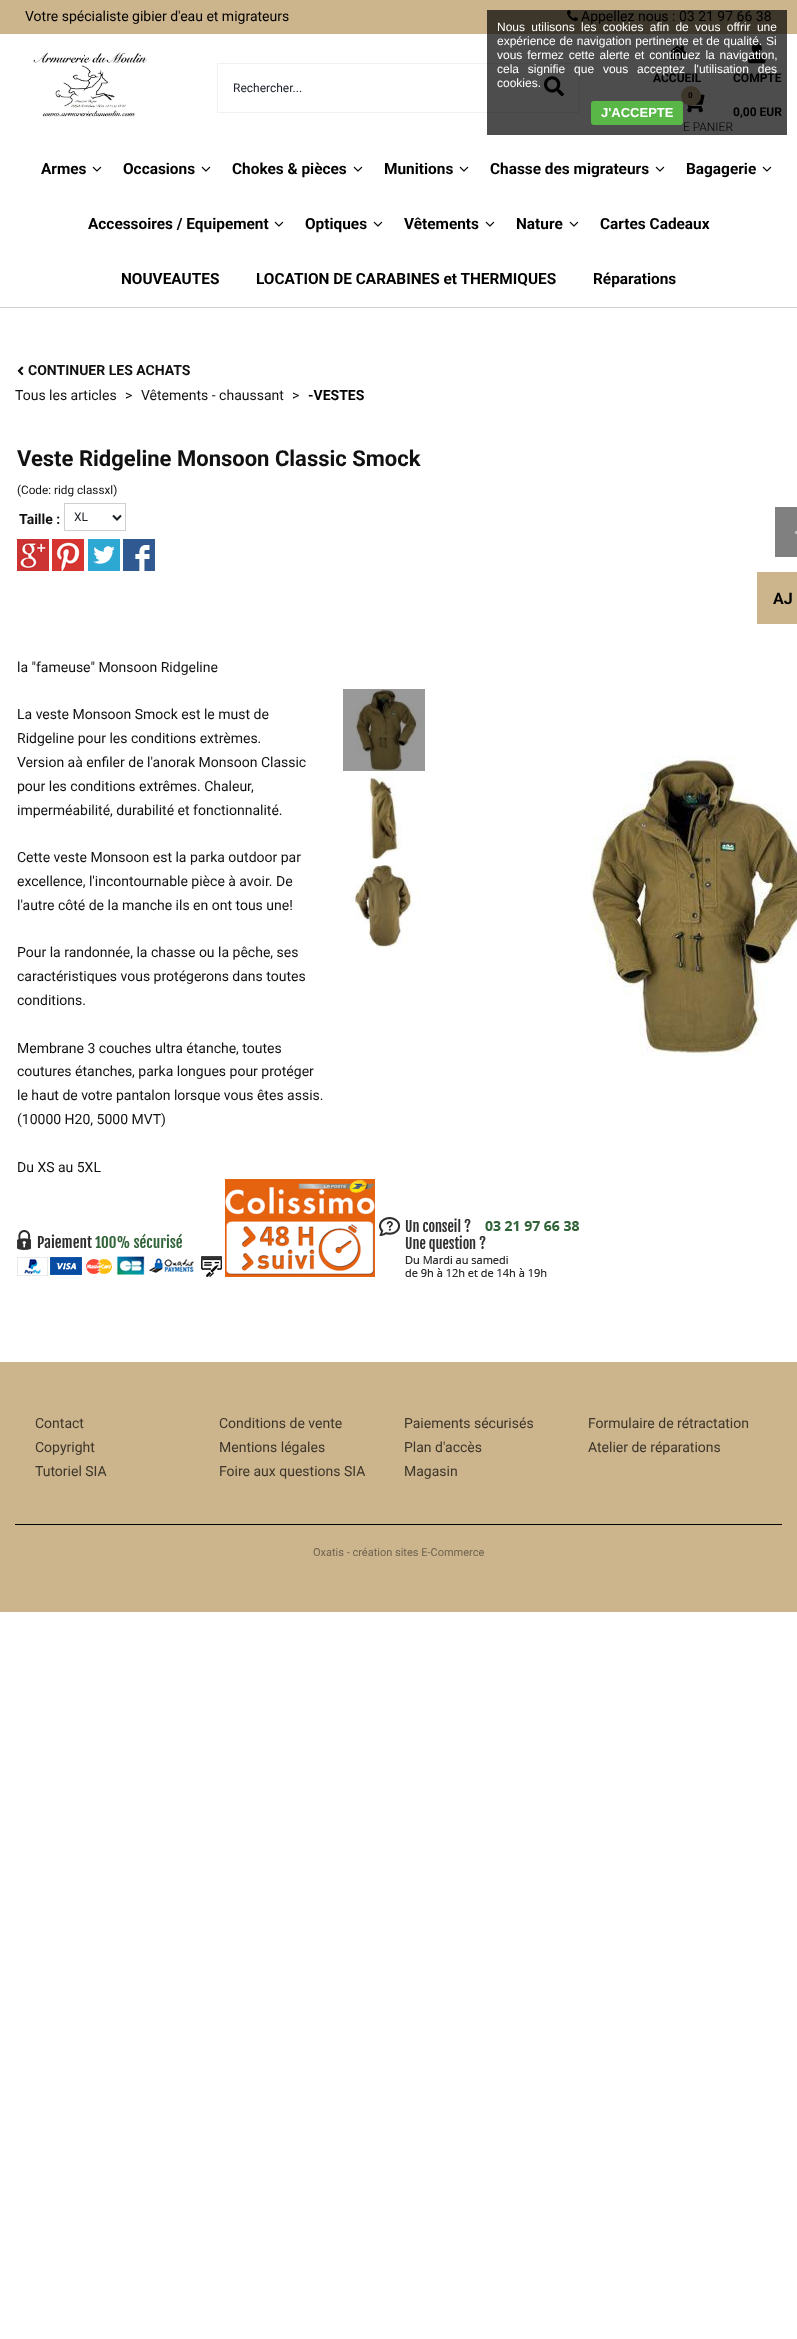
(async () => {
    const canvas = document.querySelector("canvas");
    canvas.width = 797;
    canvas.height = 2339;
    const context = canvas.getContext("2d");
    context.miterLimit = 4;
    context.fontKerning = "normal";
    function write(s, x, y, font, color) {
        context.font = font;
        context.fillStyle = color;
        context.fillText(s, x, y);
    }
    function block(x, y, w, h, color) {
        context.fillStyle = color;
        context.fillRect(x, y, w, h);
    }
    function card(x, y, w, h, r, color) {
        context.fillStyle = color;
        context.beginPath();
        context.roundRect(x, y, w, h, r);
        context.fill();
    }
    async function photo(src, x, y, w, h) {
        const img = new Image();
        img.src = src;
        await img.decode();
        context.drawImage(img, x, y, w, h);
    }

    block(0, 0, 797, 2339, "rgb(255, 255, 255)");
    block(487, 34, 300, 101, "rgb(77, 77, 77)");
    block(0, 0, 797, 34, "rgb(204, 180, 141)");
    block(487, 10, 300, 24, "rgb(61, 54, 42)");
    write("Votre spécialiste gibier d'eau et migrateurs", 25, 21, "14px Roboto", "rgb(0, 0, 0)");
    await photo("media/1.png", 567, 10, 11, 11);
    write("Appellez nous : 03 21 97 66 38", 581, 21, "14px Roboto", "rgb(0, 0, 0)");
    await photo("media/2.png", 33, 52, 115, 65);
    block(217, 63, 270, 1, "rgb(241, 241, 241)");
    block(487, 63, 93, 1, "rgb(72, 72, 72)");
    block(217, 112, 270, 1, "rgb(241, 241, 241)");
    block(487, 112, 42, 1, "rgb(72, 72, 72)");
    block(217, 63, 1, 50, "rgb(241, 241, 241)");
    write("Rechercher...", 233, 92, "12px Roboto", "rgb(26, 31, 38)");
    block(579, 63, 1, 50, "rgb(72, 72, 72)");
    block(529, 112, 51, 1, "rgb(72, 72, 72)");
    await photo("media/3.png", 544, 76, 20, 21);
    await photo("media/4.png", 668, 45, 19, 15);
    write("ACCUEIL", 653, 82, "bold 12px Roboto", "rgb(0, 0, 0)");
    await photo("media/5.png", 748, 43, 18, 21);
    write("COMPTE", 733, 82, "bold 12px Roboto", "rgb(0, 0, 0)");
    await photo("media/6.png", 687, 94, 18, 19);
    context.fillStyle = "rgb(61, 54, 42)";
    context.beginPath();
    context.arc(691, 96, 10, 0, Math.PI * 2);
    context.fill();
    write("0", 688, 98, "bold 8px Roboto", "rgb(0, 0, 0)");
    write("0,00 EUR", 733, 116, "bold 12px Roboto", "rgb(0, 0, 0)");
    write("E PANIER", 683, 131, "300 12px Roboto", "rgb(0, 0, 0)");
    block(0, 307, 797, 1, "rgb(208, 208, 208)");
    write("Armes", 41, 174, "bold 15.4px Roboto", "rgb(0, 0, 0)");
    await photo("media/7.png", 92, 166, 10, 6);
    write("Occasions", 123, 174, "bold 15.4px Roboto", "rgb(0, 0, 0)");
    await photo("media/7.png", 201, 166, 10, 6);
    write("Chokes & pièces", 232, 174, "bold 15.4px Roboto", "rgb(0, 0, 0)");
    await photo("media/7.png", 353, 166, 10, 6);
    write("Munitions", 384, 174, "bold 15.4px Roboto", "rgb(0, 0, 0)");
    await photo("media/7.png", 459, 166, 10, 6);
    write("Chasse des migrateurs", 490, 174, "bold 15.4px Roboto", "rgb(0, 0, 0)");
    await photo("media/7.png", 655, 166, 10, 6);
    write("Bagagerie", 686, 174, "bold 15.4px Roboto", "rgb(0, 0, 0)");
    await photo("media/7.png", 762, 166, 10, 6);
    write("Accessoires / Equipement", 88, 229, "bold 15.4px Roboto", "rgb(0, 0, 0)");
    await photo("media/7.png", 274, 221, 10, 6);
    write("Optiques", 305, 229, "bold 15.4px Roboto", "rgb(0, 0, 0)");
    await photo("media/7.png", 373, 221, 10, 6);
    write("Vêtements", 404, 229, "bold 15.4px Roboto", "rgb(0, 0, 0)");
    await photo("media/7.png", 485, 221, 10, 6);
    write("Nature", 516, 229, "bold 15.4px Roboto", "rgb(0, 0, 0)");
    await photo("media/7.png", 569, 221, 10, 6);
    write("Cartes Cadeaux", 600, 229, "bold 15.4px Roboto", "rgb(0, 0, 0)");
    write("NOUVEAUTES", 121, 284, "bold 15.4px Roboto", "rgb(0, 0, 0)");
    write("LOCATION DE CARABINES et THERMIQUES", 256, 284, "bold 15.4px Roboto", "rgb(0, 0, 0)");
    write("Réparations", 593, 284, "bold 15.4px Roboto", "rgb(0, 0, 0)");
    await photo("media/8.png", 17, 366, 7, 10);
    write("CONTINUER LES ACHATS", 28, 375, "bold 14px Roboto", "rgb(17, 17, 17)");
    write("Tous les articles", 15, 400, "14px Roboto", "rgb(17, 17, 17)");
    write(">", 125, 400, "14px Roboto", "rgb(17, 17, 17)");
    write("Vêtements - chaussant", 141, 400, "14px Roboto", "rgb(17, 17, 17)");
    write(">", 292, 400, "14px Roboto", "rgb(17, 17, 17)");
    write("-VESTES", 308, 400, "bold 14px Roboto", "rgb(0, 0, 0)");
    write("Veste Ridgeline Monsoon Classic Smock", 17, 466, "bold 22px Roboto", "rgb(17, 17, 17)");
    write("(Code: ridg classxl)", 17, 494, "11.75px Roboto", "rgb(17, 17, 17)");
    write("Taille :", 19, 524, "bold 14px Roboto", "rgb(17, 17, 17)");
    context.strokeStyle = "rgb(208, 208, 208)";
    context.strokeRect(64.5, 503.5, 61, 27);
    context.beginPath();
    context.moveTo(113, 515.5);
    context.lineTo(117, 519.5);
    context.lineTo(121, 515.5);
    context.strokeStyle = "rgb(26, 31, 38)";
    context.lineWidth = 2;
    context.stroke();
    write("XL", 74, 521, "12px Roboto", "rgb(26, 31, 38)");
    await photo("media/9.png", 17, 539, 32, 32);
    await photo("media/10.png", 52, 539, 32, 32);
    await photo("media/11.png", 88, 539, 32, 32);
    await photo("media/12.png", 123, 539, 32, 32);
    block(775, 507, 22, 50, "rgb(128, 128, 128)");
    await photo("media/13.png", 795, 531, 2, 3);
    block(757, 572, 40, 52, "rgb(204, 180, 141)");
    write("AJ", 773, 604, "bold 16px Roboto", "rgb(0, 0, 0)");
    write("la \"fameuse\" Monsoon Ridgeline", 17, 672, "14px Roboto", "rgb(17, 17, 17)");
    write("La veste Monsoon Smock est le must de", 17, 719, "14px Roboto", "rgb(17, 17, 17)");
    await photo("media/14.png", 343, 689, 82, 82);
    await photo("media/15.png", 369, 777, 33, 82);
    await photo("media/16.png", 351, 865, 70, 82);
    await photo("media/17.png", 591, 756, 206, 300);
    write("Ridgeline pour les conditions extrèmes.", 17, 743, "14px Roboto", "rgb(17, 17, 17)");
    write("Version aà enfiler de l'anorak Monsoon Classic", 17, 767, "14px Roboto", "rgb(17, 17, 17)");
    write("pour les conditions extrêmes. Chaleur,", 17, 791, "14px Roboto", "rgb(17, 17, 17)");
    write("imperméabilité, durabilité et fonctionnalité.", 17, 815, "14px Roboto", "rgb(17, 17, 17)");
    write("Cette veste Monsoon est la parka outdoor par", 17, 862, "14px Roboto", "rgb(17, 17, 17)");
    write("excellence, l'incontournable pièce à avoir. De", 17, 886, "14px Roboto", "rgb(17, 17, 17)");
    write("l'autre côté de la manche ils en ont tous une!", 17, 910, "14px Roboto", "rgb(17, 17, 17)");
    write("Pour la randonnée, la chasse ou la pêche, ses", 17, 957, "14px Roboto", "rgb(17, 17, 17)");
    write("caractéristiques vous protégerons dans toutes", 17, 981, "14px Roboto", "rgb(17, 17, 17)");
    write("conditions.", 17, 1005, "14px Roboto", "rgb(17, 17, 17)");
    write("Membrane 3 couches ultra étanche, toutes", 17, 1053, "14px Roboto", "rgb(17, 17, 17)");
    write("coutures étanches, parka longues pour protéger", 17, 1076, "14px Roboto", "rgb(17, 17, 17)");
    write("le haut de votre pantalon lorsque vous êtes assis.", 17, 1100, "14px Roboto", "rgb(17, 17, 17)");
    write("(10000 H20, 5000 MVT)", 17, 1124, "14px Roboto", "rgb(17, 17, 17)");
    write("Du XS au 5XL", 17, 1172, "14px Roboto", "rgb(17, 17, 17)");
    await photo("media/18.png", 17, 1230, 205, 47);
    await photo("media/19.png", 225, 1179, 150, 98);
    await photo("media/20.png", 379, 1217, 201, 60);
    block(0, 1362, 797, 250, "rgb(204, 180, 141)");
    block(15, 1524, 767, 1, "rgb(0, 0, 0)");
    write("Contact", 35, 1428, "14px Roboto", "rgb(61, 54, 42)");
    write("Conditions de vente", 219, 1428, "14px Roboto", "rgb(61, 54, 42)");
    write("Paiements sécurisés", 404, 1428, "14px Roboto", "rgb(61, 54, 42)");
    write("Formulaire de rétractation", 588, 1428, "14px Roboto", "rgb(61, 54, 42)");
    write("Copyright", 35, 1452, "14px Roboto", "rgb(61, 54, 42)");
    write("Mentions légales", 219, 1452, "14px Roboto", "rgb(61, 54, 42)");
    write("Plan d'accès", 404, 1452, "14px Roboto", "rgb(61, 54, 42)");
    write("Atelier de réparations", 588, 1452, "14px Roboto", "rgb(61, 54, 42)");
    write("Tutoriel SIA", 35, 1476, "14px Roboto", "rgb(61, 54, 42)");
    write("Foire aux questions SIA", 219, 1476, "14px Roboto", "rgb(61, 54, 42)");
    write("Magasin", 404, 1476, "14px Roboto", "rgb(61, 54, 42)");
    write("Oxatis - création sites E-Commerce", 313, 1556, "11px Roboto", "rgb(111, 99, 79)");
    context.wordSpacing = "3px";
    write("Nous utilisons les cookies afin de vous offrir une", 497, 31, "12px Liberation Sans", "rgb(255, 255, 255)");
    context.wordSpacing = "0.5px";
    write("expérience de navigation pertinente et de qualité. Si", 497, 45, "12px Liberation Sans", "rgb(255, 255, 255)");
    context.wordSpacing = "1.5px";
    write("vous fermez cette alerte et continuez la navigation,", 497, 59, "12px Liberation Sans", "rgb(255, 255, 255)");
    context.wordSpacing = "5.5px";
    write("cela signifie que vous acceptez l'utilisation des", 497, 73, "12px Liberation Sans", "rgb(255, 255, 255)");
    context.wordSpacing = "0px";
    write("cookies.", 497, 87, "12px Liberation Sans", "rgb(255, 255, 255)");
    card(591, 101, 92, 24, 3, "rgb(88, 183, 71)");
    write("J'ACCEPTE", 601, 117, "bold 13px Liberation Sans", "rgb(255, 255, 255)");
})();
